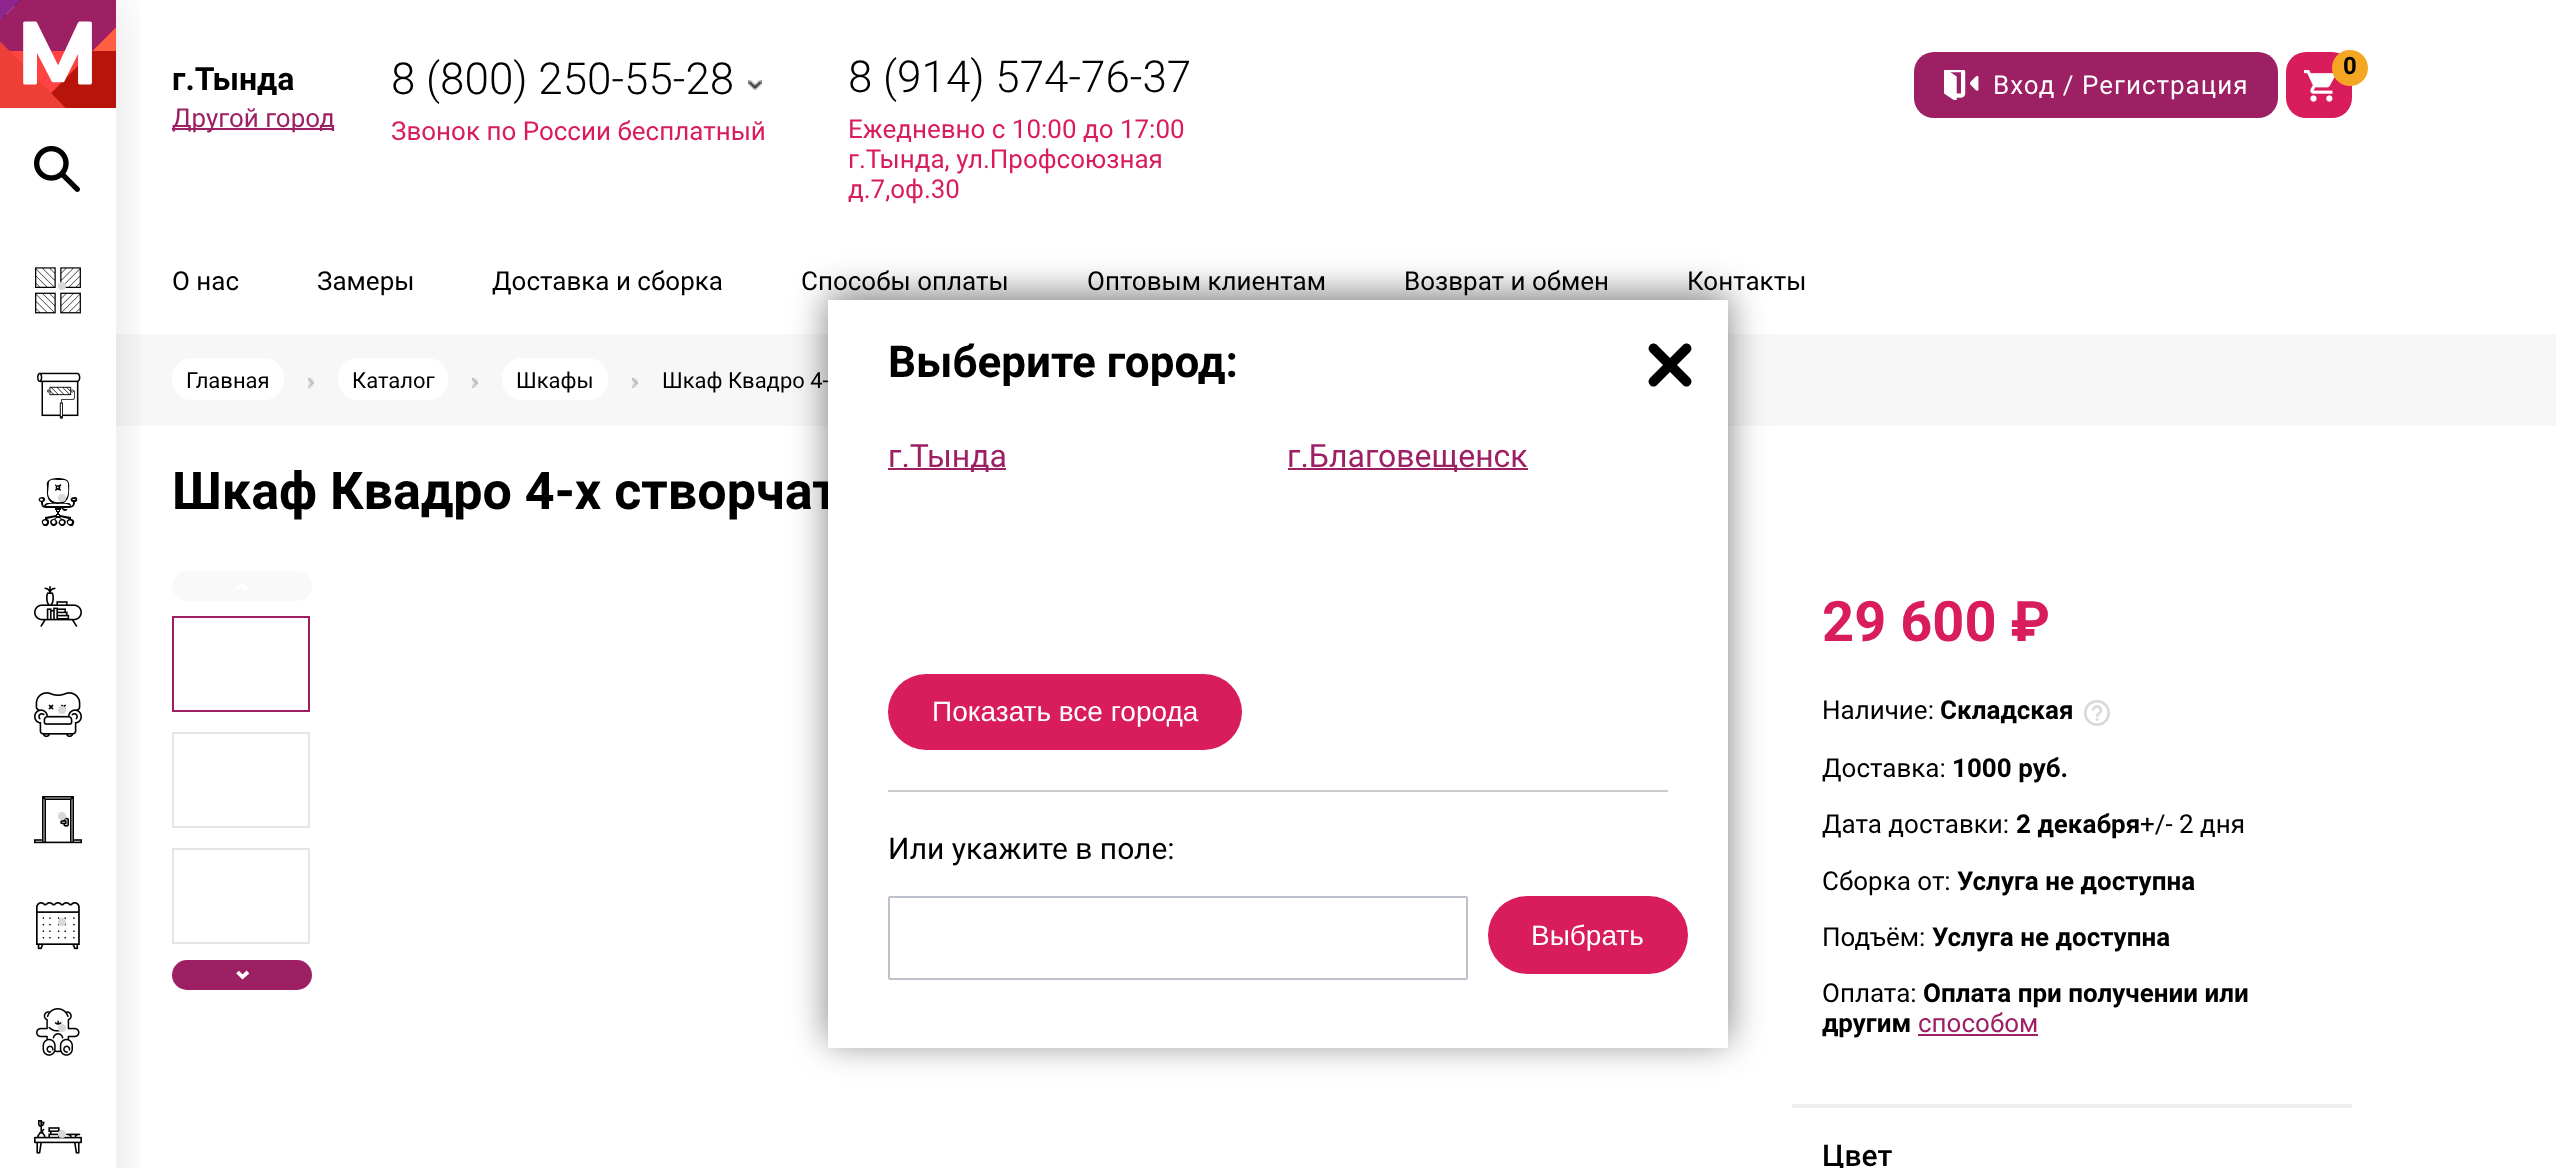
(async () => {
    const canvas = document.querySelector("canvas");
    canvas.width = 2556;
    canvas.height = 1168;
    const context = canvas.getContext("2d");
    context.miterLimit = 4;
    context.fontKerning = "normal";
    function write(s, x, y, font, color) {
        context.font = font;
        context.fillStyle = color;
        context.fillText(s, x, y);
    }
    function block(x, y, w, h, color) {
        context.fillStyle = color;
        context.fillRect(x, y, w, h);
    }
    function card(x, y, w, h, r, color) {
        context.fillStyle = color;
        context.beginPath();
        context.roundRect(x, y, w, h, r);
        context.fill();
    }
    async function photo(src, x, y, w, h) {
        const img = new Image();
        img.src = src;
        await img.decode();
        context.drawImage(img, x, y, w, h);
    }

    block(0, 0, 2556, 1168, "rgb(255, 255, 255)");
    block(172, 128, 162, 2, "rgb(157, 31, 100)");
    block(116, 334, 2440, 92, "rgb(247, 247, 247)");
    card(172, 358, 112, 42, 20, "rgb(255, 255, 255)");
    context.fillStyle = "rgb(249, 249, 249)";
    context.beginPath();
    context.moveTo(297, 601);
    context.lineTo(187, 601);
    context.bezierCurveTo(179, 601, 172, 594, 172, 586);
    context.bezierCurveTo(172, 578, 179, 571, 187, 571);
    context.lineTo(297, 571);
    context.bezierCurveTo(305, 571, 312, 578, 312, 586);
    context.bezierCurveTo(312, 594, 305, 601, 297, 601);
    context.closePath();
    context.fill();
    context.strokeStyle = "rgb(157, 31, 100)";
    context.lineWidth = 2;
    context.strokeRect(173, 617, 136, 94);
    context.strokeStyle = "rgb(229, 229, 229)";
    context.strokeRect(173, 733, 136, 94);
    context.strokeRect(173, 849, 136, 94);
    card(172, 960, 140, 30, 15, "rgb(157, 31, 100)");
    context.save();
    context.beginPath();
    context.rect(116, 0, 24, 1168);
    context.clip();
    context.fillStyle = "rgba(0, 0, 0, 0.1)";
    context.filter = "blur(24px)";
    context.beginPath();
    context.rect(4, 0, 116, 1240);
    context.fill();
    context.filter = "none";
    context.restore();
    await photo("media/1.png", 0, 0, 116, 108);
    await photo("media/2.png", 34, 146, 46, 46);
    await photo("media/3.png", 35, 267, 46, 47);
    context.fillStyle = "rgb(216, 216, 216)";
    context.beginPath();
    context.arc(62, 286, 4, 0, Math.PI * 2);
    context.fill();
    await photo("media/4.png", 37, 372, 44, 47);
    context.save();
    context.beginPath();
    context.rect(34, 478, 48, 48);
    context.clip();
    context.fillStyle = "rgb(0, 0, 0)";
    context.beginPath();
    context.moveTo(75, 497);
    context.bezierCurveTo(69, 497, 70, 502, 73, 502);
    context.bezierCurveTo(73, 503, 73, 506, 71, 506);
    context.bezierCurveTo(71, 502, 67, 503, 64, 503);
    context.bezierCurveTo(68, 500, 69, 496, 69, 492);
    context.bezierCurveTo(69, 488, 70, 484, 68, 481);
    context.bezierCurveTo(65, 477, 51, 477, 48, 481);
    context.bezierCurveTo(46, 483, 47, 485, 47, 487);
    context.bezierCurveTo(47, 493, 46, 499, 52, 503);
    context.bezierCurveTo(49, 503, 45, 502, 44, 506);
    context.bezierCurveTo(43, 505, 43, 504, 43, 502);
    context.bezierCurveTo(44, 502, 45, 501, 45, 499);
    context.bezierCurveTo(45, 498, 44, 497, 43, 497);
    context.bezierCurveTo(37, 497, 38, 502, 41, 502);
    context.bezierCurveTo(41, 507, 43, 508, 48, 508);
    context.lineTo(55, 508);
    context.lineTo(55, 510);
    context.lineTo(56, 510);
    context.lineTo(56, 512);
    context.lineTo(57, 512);
    context.lineTo(57, 514);
    context.lineTo(56, 514);
    context.lineTo(56, 515);
    context.lineTo(45, 517);
    context.lineTo(45, 519);
    context.bezierCurveTo(43, 519, 41, 521, 42, 523);
    context.bezierCurveTo(42, 524, 43, 525, 44, 526);
    context.bezierCurveTo(49, 528, 51, 520, 47, 519);
    context.lineTo(56, 517);
    context.lineTo(54, 519);
    context.bezierCurveTo(46, 519, 52, 531, 57, 524);
    context.bezierCurveTo(58, 523, 57, 520, 55, 519);
    context.lineTo(57, 518);
    context.lineTo(59, 518);
    context.lineTo(61, 519);
    context.bezierCurveTo(59, 520, 58, 523, 59, 524);
    context.bezierCurveTo(64, 531, 70, 519, 62, 519);
    context.lineTo(60, 517);
    context.lineTo(69, 519);
    context.bezierCurveTo(62, 522, 73, 531, 74, 523);
    context.bezierCurveTo(75, 521, 73, 519, 71, 519);
    context.lineTo(71, 517);
    context.lineTo(60, 515);
    context.lineTo(60, 514);
    context.lineTo(59, 514);
    context.lineTo(59, 512);
    context.lineTo(60, 512);
    context.lineTo(60, 510);
    context.lineTo(61, 510);
    context.lineTo(61, 508);
    context.lineTo(64, 511);
    context.bezierCurveTo(68, 511, 69, 509, 65, 509);
    context.lineTo(63, 508);
    context.bezierCurveTo(69, 508, 75, 509, 75, 502);
    context.bezierCurveTo(78, 502, 78, 497, 75, 497);
    context.closePath();
    context.moveTo(48, 493);
    context.lineTo(49, 482);
    context.bezierCurveTo(50, 479, 55, 480, 58, 480);
    context.bezierCurveTo(62, 480, 68, 479, 68, 484);
    context.bezierCurveTo(68, 488, 69, 493, 67, 497);
    context.bezierCurveTo(63, 506, 48, 503, 48, 493);
    context.closePath();
    context.moveTo(40, 500);
    context.bezierCurveTo(40, 498, 43, 498, 43, 500);
    context.bezierCurveTo(43, 501, 40, 501, 40, 500);
    context.closePath();
    context.moveTo(75, 500);
    context.bezierCurveTo(72, 500, 72, 499, 73, 499);
    context.bezierCurveTo(76, 499, 76, 500, 75, 500);
    context.closePath();
    context.moveTo(46, 506);
    context.bezierCurveTo(47, 503, 55, 504, 58, 504);
    context.bezierCurveTo(60, 504, 69, 503, 70, 506);
    context.closePath();
    context.moveTo(59, 508);
    context.lineTo(56, 508);
    context.closePath();
    context.moveTo(59, 511);
    context.lineTo(57, 511);
    context.lineTo(57, 510);
    context.lineTo(59, 510);
    context.closePath();
    context.moveTo(57, 515);
    context.lineTo(59, 515);
    context.lineTo(59, 516);
    context.lineTo(57, 516);
    context.closePath();
    context.moveTo(47, 522);
    context.bezierCurveTo(47, 525, 43, 525, 43, 522);
    context.bezierCurveTo(43, 520, 47, 520, 47, 522);
    context.closePath();
    context.moveTo(54, 524);
    context.bezierCurveTo(51, 524, 51, 520, 54, 520);
    context.bezierCurveTo(56, 520, 56, 524, 54, 524);
    context.closePath();
    context.moveTo(64, 522);
    context.bezierCurveTo(64, 525, 60, 525, 60, 522);
    context.bezierCurveTo(60, 520, 64, 520, 64, 522);
    context.closePath();
    context.moveTo(72, 522);
    context.bezierCurveTo(72, 525, 68, 525, 68, 522);
    context.bezierCurveTo(68, 520, 72, 520, 72, 522);
    context.closePath();
    context.fill("evenodd");
    context.restore();
    context.fillStyle = "rgb(0, 0, 0)";
    context.beginPath();
    context.moveTo(61, 484.5);
    context.bezierCurveTo(60, 484, 59.5, 485, 59, 485.5);
    context.bezierCurveTo(58.5, 485, 57.5, 485, 57, 485.5);
    context.bezierCurveTo(55, 483.5, 54, 484.5, 56, 486.5);
    context.bezierCurveTo(55.5, 487, 55.5, 488, 56, 488.5);
    context.bezierCurveTo(54, 490.5, 55.5, 491.5, 57, 490);
    context.lineTo(59, 490);
    context.bezierCurveTo(60.5, 491.5, 62, 490.5, 60, 488.5);
    context.bezierCurveTo(60.5, 488, 60.5, 487, 60, 486.5);
    context.bezierCurveTo(60.5, 486.5, 62, 485, 61, 484.5);
    context.closePath();
    context.moveTo(57.5, 488);
    context.bezierCurveTo(56, 487, 58.5, 486.5, 58.5, 487);
    context.bezierCurveTo(59, 487.5, 58, 489, 57.5, 488);
    context.closePath();
    context.fill("evenodd");
    context.fillStyle = "rgb(216, 216, 216)";
    context.beginPath();
    context.arc(62, 498, 4, 0, Math.PI * 2);
    context.fill();
    await photo("media/5.png", 34, 586, 48, 41);
    await photo("media/6.png", 34, 692, 48, 46);
    context.beginPath();
    context.arc(62, 710, 4, 0, Math.PI * 2);
    context.fill();
    await photo("media/7.png", 34, 796, 48, 48);
    context.beginPath();
    context.arc(62, 816, 4, 0, Math.PI * 2);
    context.fill();
    await photo("media/8.png", 36, 902, 44, 48);
    context.beginPath();
    context.arc(62, 922, 4, 0, Math.PI * 2);
    context.fill();
    await photo("media/9.png", 36, 1008, 44, 48);
    context.beginPath();
    context.arc(62, 1028, 4, 0, Math.PI * 2);
    context.fill();
    await photo("media/10.png", 34, 1120, 48, 34);
    context.beginPath();
    context.arc(62, 1134, 4, 0, Math.PI * 2);
    context.fill();
    write("г.Тында", 172, 90, "bold 32px Roboto", "rgb(0, 0, 0)");
    write("Другой город", 172, 127, "26px Roboto", "rgb(157, 31, 100)");
    write("8 (800) 250-55-28", 391, 94, "300 44px Roboto", "rgb(0, 0, 0)");
    await photo("media/11.png", 748, 80, 14, 10);
    write("Звонок по России бесплатный", 391, 140, "26px Roboto", "rgb(217, 28, 92)");
    write("8 (914) 574-76-37", 848, 92, "300 44px Roboto", "rgb(0, 0, 0)");
    write("Ежедневно c 10:00 до 17:00", 848, 138, "26px Roboto", "rgb(217, 28, 92)");
    write("г.Тында, ул.Профсоюзная", 848, 168, "26px Roboto", "rgb(217, 28, 92)");
    write("д.7,оф.30", 848, 198, "26px Roboto", "rgb(217, 28, 92)");
    card(2286, 52, 66, 66, 20, "rgb(217, 28, 92)");
    await photo("media/12.png", 2304, 70, 31, 32);
    context.fillStyle = "rgb(245, 166, 35)";
    context.beginPath();
    context.arc(2350, 68, 18, 0, Math.PI * 2);
    context.fill();
    write("0", 2343, 74, "bold 24px Roboto", "rgb(0, 0, 0)");
    card(1914, 52, 364, 66, 20, "rgb(157, 31, 100)");
    await photo("media/13.png", 1944, 70, 35, 30);
    context.letterSpacing = "1px";
    write("Вход / Регистрация", 1993, 94, "26px Roboto", "rgb(255, 255, 255)");
    context.letterSpacing = "0px";
    write("О нас", 172, 290, "26px Roboto", "rgb(0, 0, 0)");
    write("Замеры", 317, 290, "26px Roboto", "rgb(0, 0, 0)");
    write("Доставка и сборка", 492, 290, "26px Roboto", "rgb(0, 0, 0)");
    write("Способы оплаты", 801, 290, "26px Roboto", "rgb(0, 0, 0)");
    write("Оптовым клиентам", 1087, 290, "26px Roboto", "rgb(0, 0, 0)");
    write("Возврат и обмен", 1404, 290, "26px Roboto", "rgb(0, 0, 0)");
    write("Контакты", 1687, 290, "26px Roboto", "rgb(0, 0, 0)");
    write("Главная", 186, 388, "22px Roboto", "rgb(0, 0, 0)");
    await photo("media/14.png", 308, 378, 6, 10);
    card(338, 358, 110, 42, 20, "rgb(255, 255, 255)");
    write("Каталог", 352, 388, "22px Roboto", "rgb(0, 0, 0)");
    await photo("media/14.png", 472, 378, 6, 10);
    card(502, 358, 106, 42, 20, "rgb(255, 255, 255)");
    write("Шкафы", 516, 388, "22px Roboto", "rgb(0, 0, 0)");
    await photo("media/14.png", 632, 378, 6, 10);
    write("Шкаф Квадро 4-", 662, 388, "22px Roboto", "rgb(0, 0, 0)");
    write("Шкаф Квадро 4-х створчат", 172, 509, "bold 52px Roboto", "rgb(0, 0, 0)");
    context.save();
    context.beginPath();
    context.rect(236, 580, 14, 10);
    context.clip();
    context.beginPath();
    context.moveTo(246.5, 589.5);
    context.lineTo(241.5, 584.5);
    context.lineTo(236, 589.5);
    context.strokeStyle = "rgb(255, 255, 255)";
    context.lineWidth = 3.8;
    context.stroke();
    context.restore();
    context.beginPath();
    context.moveTo(237.5, 972);
    context.lineTo(242.5, 977);
    context.lineTo(248, 972);
    context.strokeStyle = "rgb(255, 255, 255)";
    context.lineWidth = 3.8;
    context.stroke();
    write("29 600 ₽", 1822, 641, "bold 56px Roboto", "rgb(217, 28, 92)");
    write("Наличие:", 1822, 719, "26px Roboto", "rgb(0, 0, 0)");
    write("Складская", 1940, 719, "bold 26px Roboto", "rgb(0, 0, 0)");
    await photo("media/15.png", 2084, 700, 26, 26);
    write("Доставка:", 1822, 777, "26px Roboto", "rgb(0, 0, 0)");
    write("1000 руб.", 1952, 777, "bold 26px Roboto", "rgb(0, 0, 0)");
    write("Дата доставки:", 1822, 833, "26px Roboto", "rgb(0, 0, 0)");
    write("2 декабря", 2016, 833, "bold 26px Roboto", "rgb(0, 0, 0)");
    write("+/- 2 дня", 2140, 833, "26px Roboto", "rgb(0, 0, 0)");
    write("Сборка от:", 1822, 890, "26px Roboto", "rgb(0, 0, 0)");
    write("Услуга не доступна", 1957, 890, "bold 26px Roboto", "rgb(0, 0, 0)");
    write("Подъём:", 1822, 946, "26px Roboto", "rgb(0, 0, 0)");
    write("Услуга не доступна", 1932, 946, "bold 26px Roboto", "rgb(0, 0, 0)");
    write("Оплата:", 1822, 1002, "26px Roboto", "rgb(0, 0, 0)");
    write("Оплата при получении или", 1923, 1002, "bold 26px Roboto", "rgb(0, 0, 0)");
    write("другим", 1822, 1032, "bold 26px Roboto", "rgb(0, 0, 0)");
    block(1918, 1034, 120, 2, "rgb(157, 31, 100)");
    write("способом", 1918, 1032, "26px Roboto", "rgb(157, 31, 100)");
    block(1792, 1104, 560, 4, "rgb(239, 239, 239)");
    write("Цвет", 1822, 1166, "500 30px Roboto", "rgb(0, 0, 0)");
    context.fillStyle = "rgba(0, 0, 0, 0.5)";
    context.filter = "blur(18px)";
    context.beginPath();
    context.rect(828, 294, 900, 748);
    context.fill();
    context.filter = "none";
    block(828, 300, 900, 748, "rgb(255, 255, 255)");
    write("Выберите город:", 888, 377, "bold 44px Roboto", "rgb(0, 0, 0)");
    context.beginPath();
    context.moveTo(1650, 378);
    context.lineTo(1683, 345);
    context.bezierCurveTo(1685, 343, 1688, 343, 1690, 345);
    context.bezierCurveTo(1692, 347, 1692, 350, 1690, 352);
    context.lineTo(1657, 385);
    context.bezierCurveTo(1655, 387, 1652, 387, 1650, 385);
    context.bezierCurveTo(1648, 383, 1648, 380, 1650, 378);
    context.closePath();
    context.fill();
    context.beginPath();
    context.moveTo(1657, 345);
    context.lineTo(1690, 378);
    context.bezierCurveTo(1692, 380, 1692, 383, 1690, 385);
    context.bezierCurveTo(1688, 387, 1685, 387, 1683, 385);
    context.lineTo(1650, 352);
    context.bezierCurveTo(1648, 350, 1648, 347, 1650, 345);
    context.bezierCurveTo(1652, 343, 1655, 343, 1657, 345);
    context.closePath();
    context.fill();
    block(888, 468, 118, 2, "rgb(157, 31, 100)");
    write("г.Тында", 888, 467, "32px Roboto", "rgb(157, 31, 100)");
    block(1288, 468, 240, 2, "rgb(157, 31, 100)");
    write("г.Благовещенск", 1287, 467, "32px Roboto", "rgb(157, 31, 100)");
    card(888, 674, 354, 76, 38, "rgb(217, 28, 92)");
    write("Показать все города", 932, 721, "28px Liberation Sans", "rgb(255, 255, 255)");
    block(888, 790, 780, 2, "rgb(204, 204, 204)");
    write("Или укажите в поле:", 888, 859, "30px Roboto", "rgb(0, 0, 0)");
    context.beginPath();
    context.roundRect(889, 897, 578, 82, 1);
    context.strokeStyle = "rgb(189, 193, 204)";
    context.lineWidth = 2;
    context.stroke();
    card(1488, 896, 200, 78, 39, "rgb(217, 28, 92)");
    write("Выбрать", 1531, 945, "28px Liberation Sans", "rgb(255, 255, 255)");
})();
